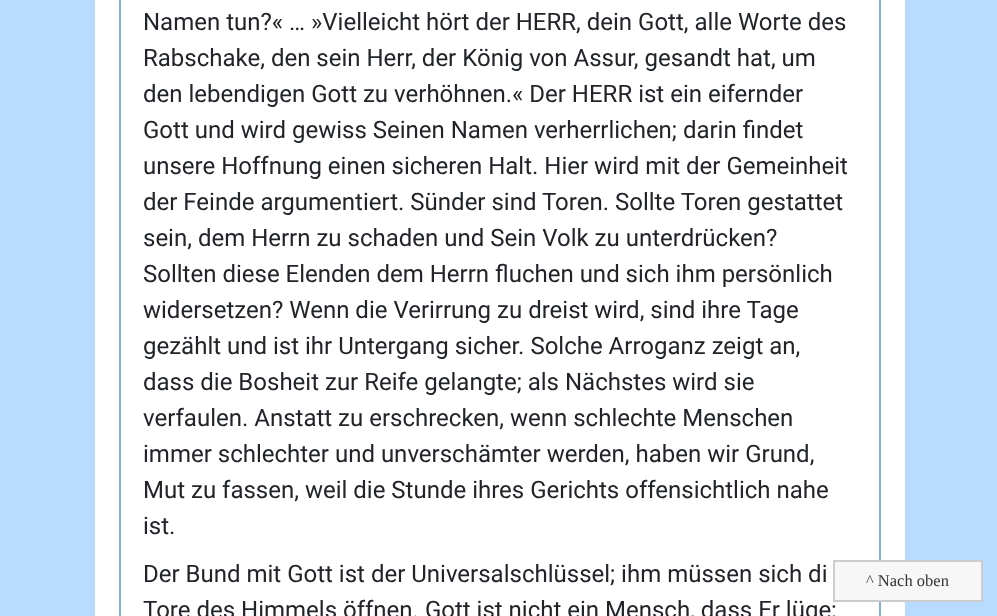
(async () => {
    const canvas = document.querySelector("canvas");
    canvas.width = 997;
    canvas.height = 616;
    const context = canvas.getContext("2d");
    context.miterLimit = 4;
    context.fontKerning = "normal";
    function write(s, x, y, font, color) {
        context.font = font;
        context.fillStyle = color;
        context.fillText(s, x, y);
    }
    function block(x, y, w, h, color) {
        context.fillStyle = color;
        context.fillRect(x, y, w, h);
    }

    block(0, 0, 997, 616, "rgb(184, 220, 255)");
    block(95, 0, 810, 616, "rgb(255, 255, 255)");
    context.strokeStyle = "rgb(130, 178, 219)";
    context.lineWidth = 2;
    context.strokeRect(120, -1, 760, 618);
    write("Namen tun?« … »Vielleicht hört der HERR, dein Gott, alle Worte des", 143, 30, "24px Roboto", "rgb(33, 37, 41)");
    write("Rabschake, den sein Herr, der König von Assur, gesandt hat, um", 143, 66, "24px Roboto", "rgb(33, 37, 41)");
    write("den lebendigen Gott zu verhöhnen.« Der HERR ist ein eifernder", 143, 102, "24px Roboto", "rgb(33, 37, 41)");
    write("Gott und wird gewiss Seinen Namen verherrlichen; darin findet", 143, 138, "24px Roboto", "rgb(33, 37, 41)");
    write("unsere Hoffnung einen sicheren Halt. Hier wird mit der Gemeinheit", 143, 174, "24px Roboto", "rgb(33, 37, 41)");
    write("der Feinde argumentiert. Sünder sind Toren. Sollte Toren gestattet", 143, 210, "24px Roboto", "rgb(33, 37, 41)");
    write("sein, dem Herrn zu schaden und Sein Volk zu unterdrücken?", 143, 246, "24px Roboto", "rgb(33, 37, 41)");
    write("Sollten diese Elenden dem Herrn fluchen und sich ihm persönlich", 143, 282, "24px Roboto", "rgb(33, 37, 41)");
    write("widersetzen? Wenn die Verirrung zu dreist wird, sind ihre Tage", 143, 318, "24px Roboto", "rgb(33, 37, 41)");
    write("gezählt und ist ihr Untergang sicher. Solche Arroganz zeigt an,", 143, 354, "24px Roboto", "rgb(33, 37, 41)");
    write("dass die Bosheit zur Reife gelangte; als Nächstes wird sie", 143, 390, "24px Roboto", "rgb(33, 37, 41)");
    write("verfaulen. Anstatt zu erschrecken, wenn schlechte Menschen", 143, 426, "24px Roboto", "rgb(33, 37, 41)");
    write("immer schlechter und unverschämter werden, haben wir Grund,", 143, 462, "24px Roboto", "rgb(33, 37, 41)");
    write("Mut zu fassen, weil die Stunde ihres Gerichts offensichtlich nahe", 143, 498, "24px Roboto", "rgb(33, 37, 41)");
    write("ist.", 143, 534, "24px Roboto", "rgb(33, 37, 41)");
    write("Der Bund mit Gott ist der Universalschlüssel; ihm müssen sich di", 143, 582, "24px Roboto", "rgb(33, 37, 41)");
    write("Tore des Himmels öffnen. Gott ist nicht ein Mensch, dass Er lüge;", 143, 618, "24px Roboto", "rgb(33, 37, 41)");
    context.fillStyle = "rgb(247, 247, 247)";
    context.beginPath();
    context.rect(834, 561, 148, 40);
    context.fill();
    context.strokeStyle = "rgb(204, 204, 204)";
    context.stroke();
    write("^ Nach oben", 866, 586, "16.5px Liberation Serif", "rgb(51, 51, 51)");
})();
